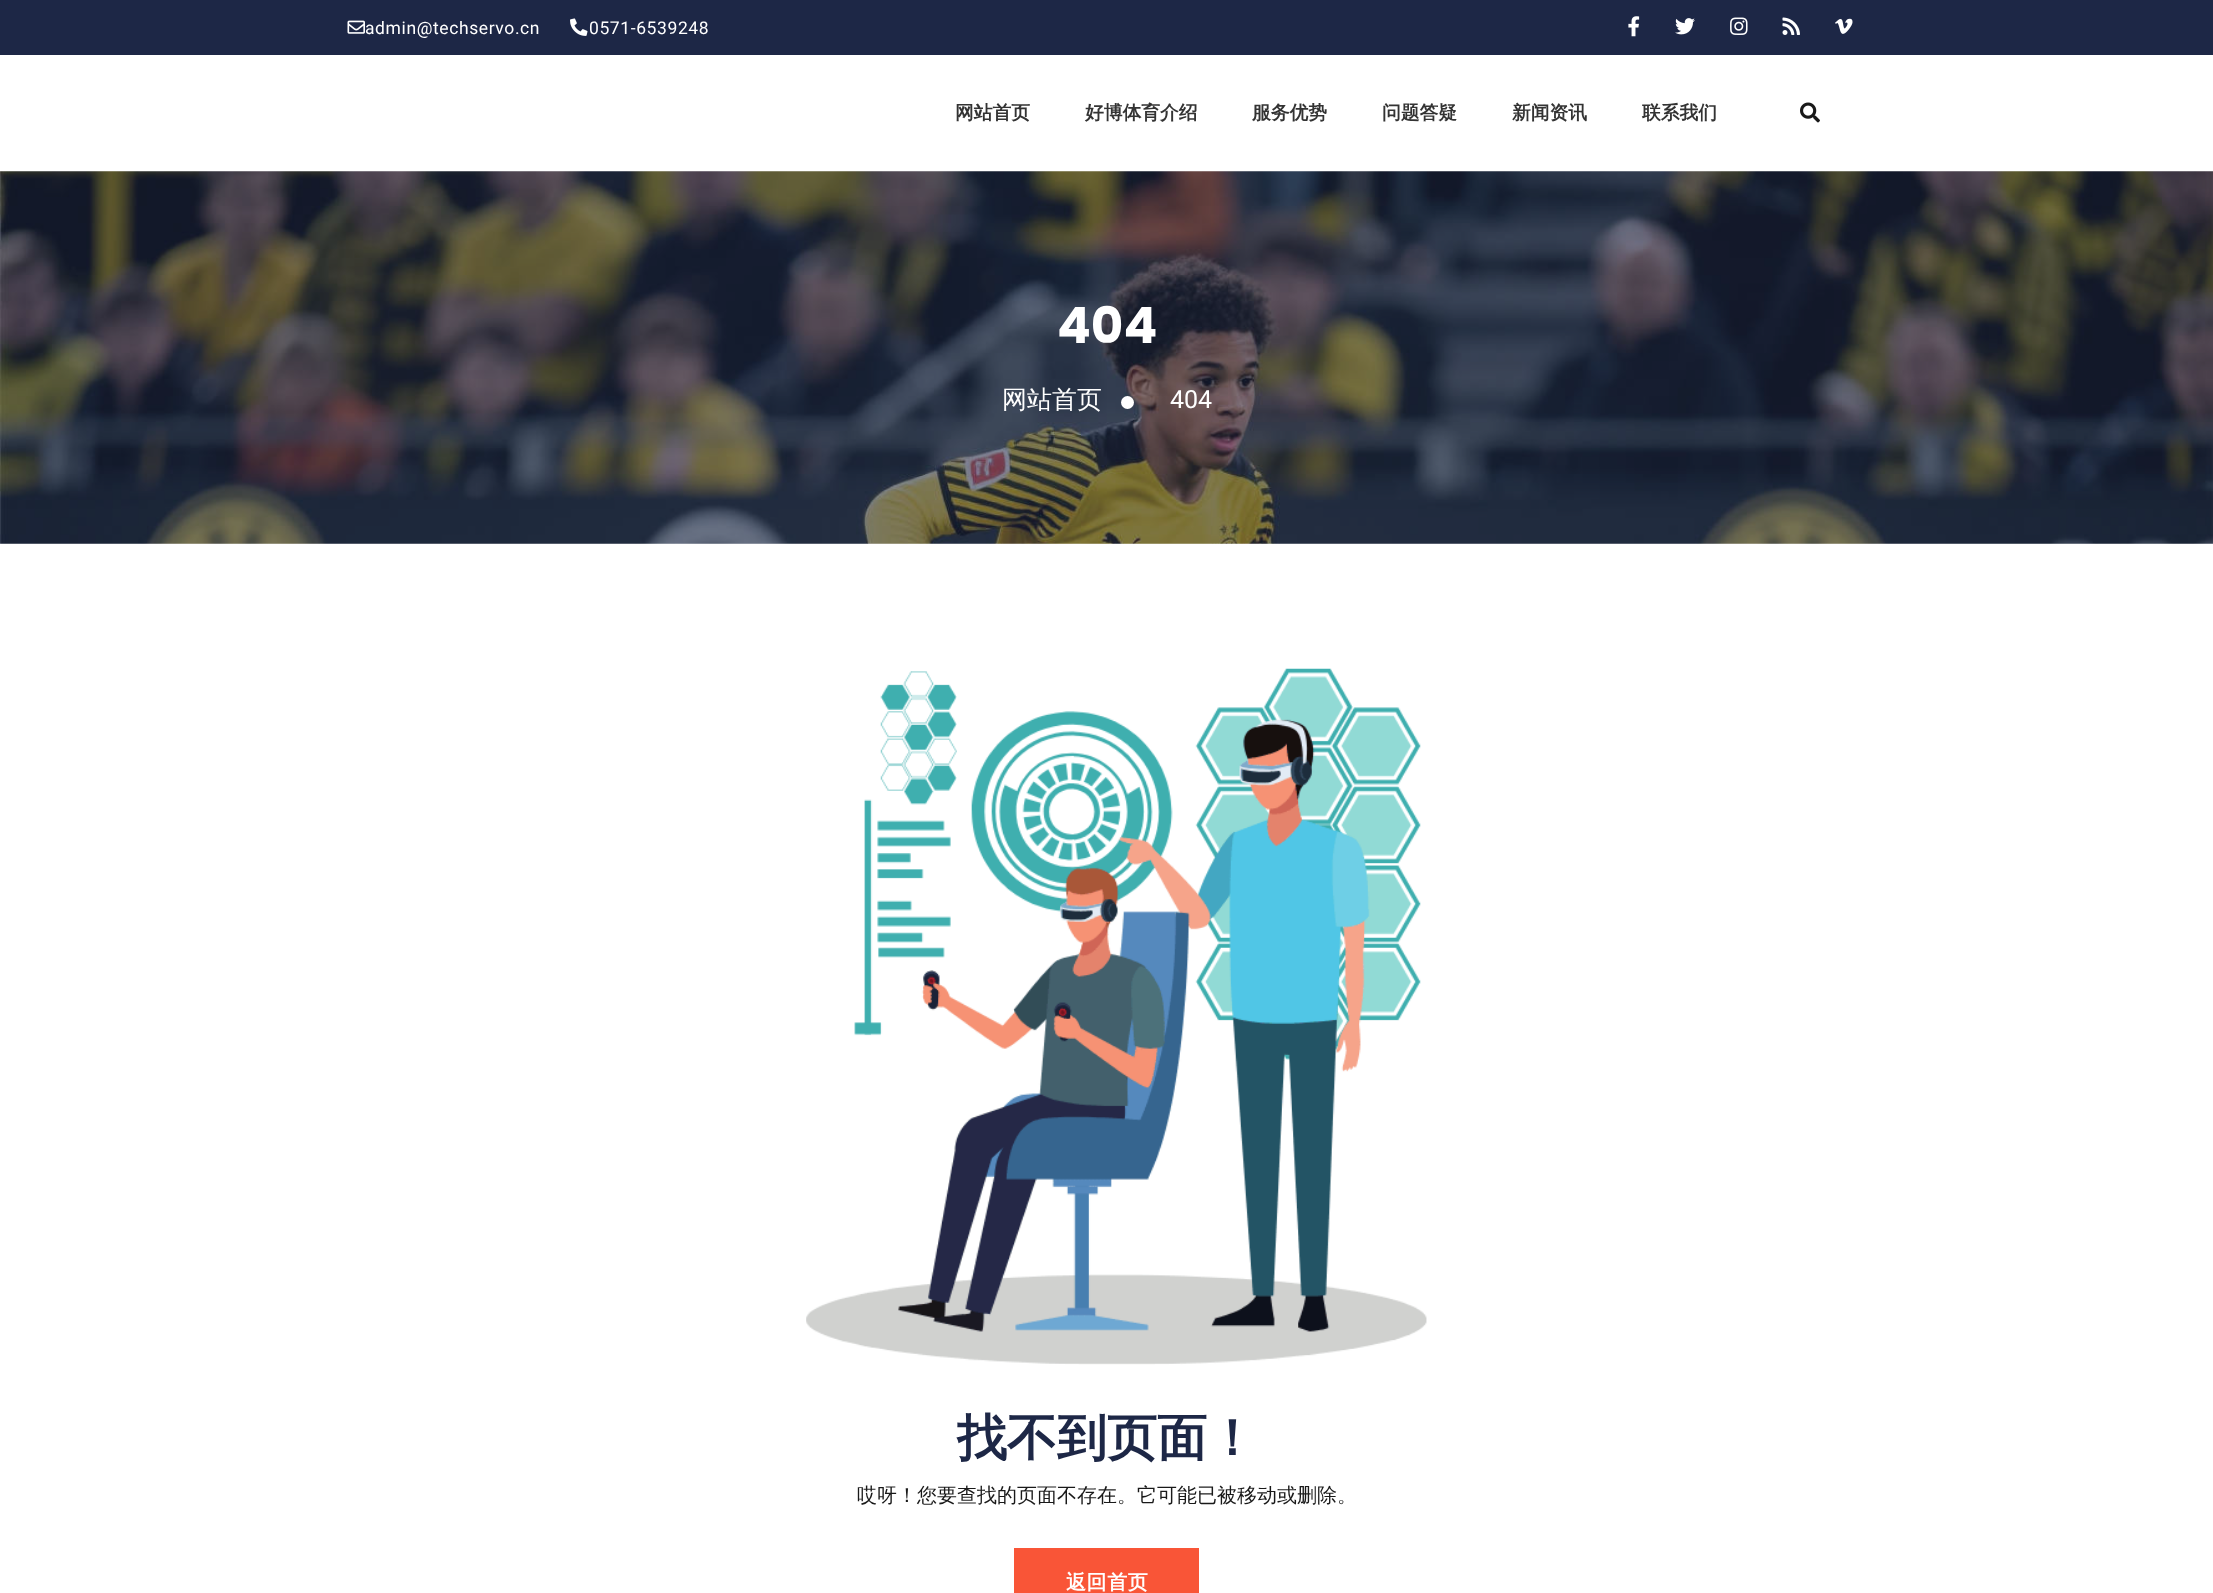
(async () => {
    const canvas = document.querySelector("canvas");
    canvas.width = 2213;
    canvas.height = 1593;
    const context = canvas.getContext("2d");
    context.miterLimit = 4;
    context.fontKerning = "normal";
    function write(s, x, y, font, color) {
        context.font = font;
        context.fillStyle = color;
        context.fillText(s, x, y);
    }
    function block(x, y, w, h, color) {
        context.fillStyle = color;
        context.fillRect(x, y, w, h);
    }
    async function photo(src, x, y, w, h) {
        const img = new Image();
        img.src = src;
        await img.decode();
        context.drawImage(img, x, y, w, h);
    }

    block(0, 0, 2213, 1593, "rgb(255, 255, 255)");
    block(0, 0, 2213, 55, "rgb(29, 39, 70)");
    await photo("media/1.png", 347, 20, 18, 14);
    context.letterSpacing = "0.6px";
    write("admin@techservo.cn", 365, 34, "17.5px Roboto", "rgb(255, 255, 255)");
    await photo("media/2.png", 570, 18, 18, 18);
    write("0571-6539248", 589, 34, "17.5px Roboto", "rgb(255, 255, 255)");
    await photo("media/3.png", 1628, 16, 12, 21);
    await photo("media/4.png", 1675, 18, 20, 17);
    await photo("media/5.png", 1730, 17, 18, 18);
    await photo("media/6.png", 1782, 17, 18, 18);
    await photo("media/7.png", 1835, 18, 18, 16);
    context.letterSpacing = "0px";
    write("网站首页", 955, 119, "bold 18.75px WenQuanYi Zen Hei", "rgb(51, 51, 51)");
    write("好博体育介绍", 1085, 119, "bold 18.75px WenQuanYi Zen Hei", "rgb(51, 51, 51)");
    write("服务优势", 1252, 119, "bold 18.75px WenQuanYi Zen Hei", "rgb(51, 51, 51)");
    write("问题答疑", 1382, 119, "bold 18.75px WenQuanYi Zen Hei", "rgb(51, 51, 51)");
    write("新闻资讯", 1512, 119, "bold 18.75px WenQuanYi Zen Hei", "rgb(51, 51, 51)");
    write("联系我们", 1642, 119, "bold 18.75px WenQuanYi Zen Hei", "rgb(51, 51, 51)");
    await photo("media/8.png", 1800, 102, 20, 21);
    await photo("media/9.png", 0, 171, 2213, 373);
    write("404", 1057, 343, "bold 50px Poppins", "rgb(255, 255, 255)");
    write("网站首页", 1002, 408, "500 25px WenQuanYi Zen Hei", "rgb(255, 255, 255)");
    context.beginPath();
    context.arc(1127.5, 402.5, 6.5, 0, Math.PI * 2);
    context.fill();
    write("404", 1170, 408, "25px Roboto", "rgb(255, 255, 255)");
    await photo("media/10.png", 806, 668, 621, 697);
    write("找不到页面！", 957, 1455, "bold 50px WenQuanYi Zen Hei", "rgb(29, 39, 70)");
    write("哎呀！您要查找的页面不存在。它可能已被移动或删除。", 857, 1502, "500 20px WenQuanYi Zen Hei", "rgb(25, 25, 25)");
    block(1014, 1548, 185, 45, "rgb(249, 85, 55)");
    context.letterSpacing = "0.6px";
    write("返回首页", 1066, 1589, "bold 20px WenQuanYi Zen Hei", "rgb(255, 255, 255)");
})();
